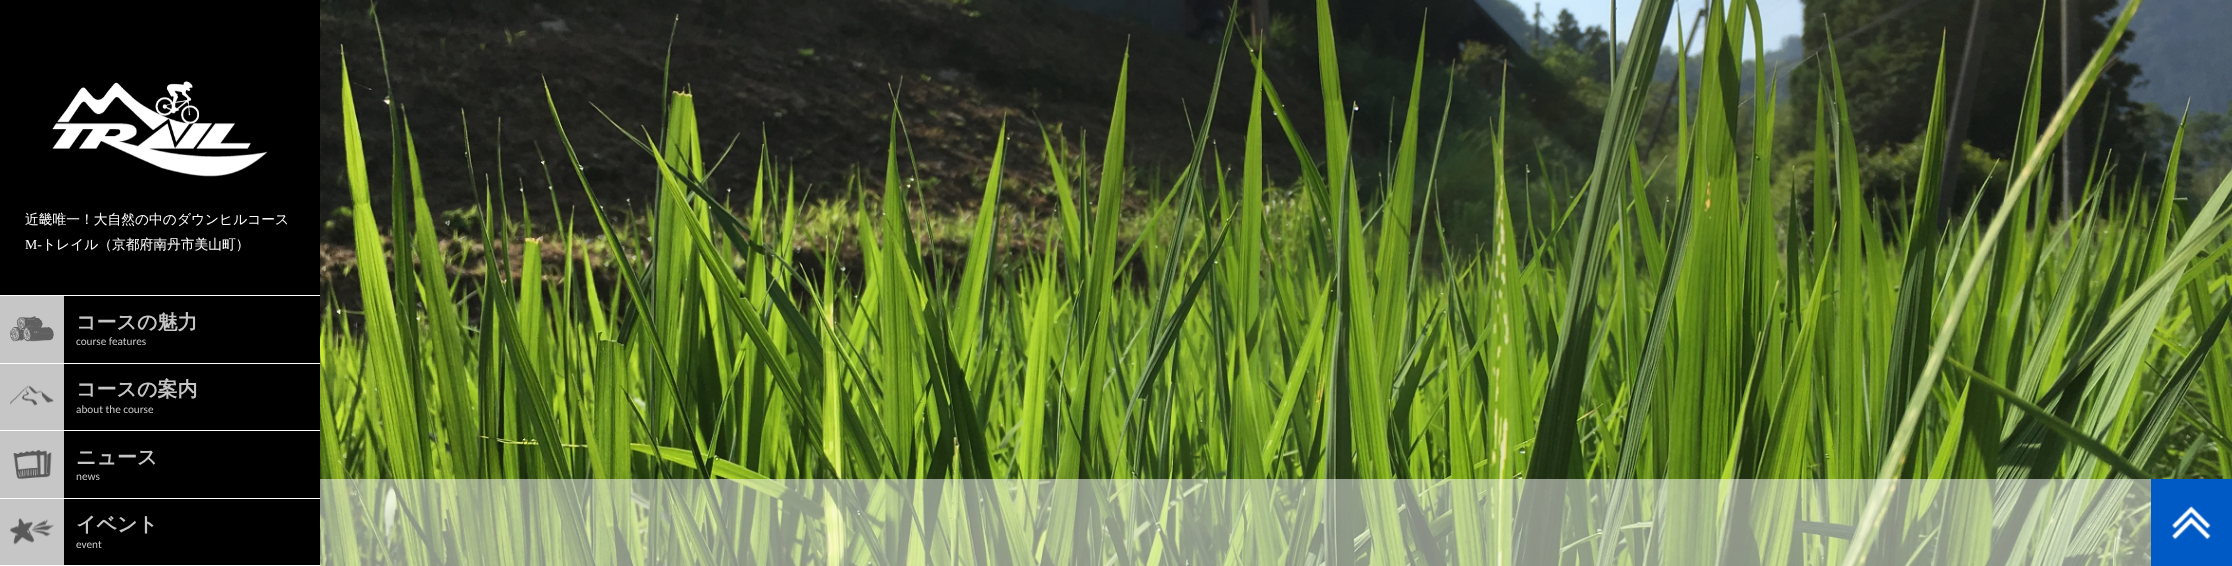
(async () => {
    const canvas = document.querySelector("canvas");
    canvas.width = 2232;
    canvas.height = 566;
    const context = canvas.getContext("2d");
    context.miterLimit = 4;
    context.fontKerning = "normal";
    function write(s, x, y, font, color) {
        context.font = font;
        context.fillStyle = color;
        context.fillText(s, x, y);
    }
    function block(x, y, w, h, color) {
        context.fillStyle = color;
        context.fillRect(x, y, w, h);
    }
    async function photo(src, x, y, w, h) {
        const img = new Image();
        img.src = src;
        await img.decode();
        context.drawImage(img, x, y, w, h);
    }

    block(0, 0, 2232, 566, "rgb(255, 255, 255)");
    block(0, 0, 320, 565, "rgb(0, 0, 0)");
    await photo("media/1.png", 52, 81, 216, 96);
    write("近畿唯一！大自然の中のダウンヒルコース", 25, 224, "500 13.75px WenQuanYi Zen Hei", "rgb(255, 255, 255)");
    write("M-", 25, 249, "13.75px Liberation Serif", "rgb(255, 255, 255)");
    write("トレイル（京都府南丹市美山町）", 42, 249, "500 13.75px WenQuanYi Zen Hei", "rgb(255, 255, 255)");
    block(0, 295, 320, 1, "rgb(255, 255, 255)");
    block(0, 296, 64, 67, "rgb(198, 198, 198)");
    await photo("media/2.png", 10, 316, 44, 26);
    write("コースの魅力", 76, 329, "bold 20px WenQuanYi Zen Hei", "rgb(197, 197, 197)");
    write("course features", 76, 345, "11.25px Carlito", "rgb(197, 197, 197)");
    block(0, 363, 320, 1, "rgb(255, 255, 255)");
    block(0, 364, 64, 66, "rgb(198, 198, 198)");
    await photo("media/3.png", 10, 385, 44, 21);
    write("コースの案内", 76, 396, "bold 20px WenQuanYi Zen Hei", "rgb(197, 197, 197)");
    write("about the course", 76, 413, "11.25px Carlito", "rgb(197, 197, 197)");
    block(0, 430, 320, 1, "rgb(255, 255, 255)");
    block(0, 431, 64, 67, "rgb(198, 198, 198)");
    await photo("media/4.png", 13, 450, 39, 29);
    write("ニュース", 76, 464, "bold 20px WenQuanYi Zen Hei", "rgb(197, 197, 197)");
    write("news", 76, 480, "11.25px Carlito", "rgb(197, 197, 197)");
    block(0, 498, 320, 1, "rgb(255, 255, 255)");
    block(0, 499, 64, 66, "rgb(198, 198, 198)");
    await photo("media/5.png", 10, 518, 44, 27);
    write("イベント", 76, 531, "bold 20px WenQuanYi Zen Hei", "rgb(197, 197, 197)");
    write("event", 76, 548, "11.25px Carlito", "rgb(197, 197, 197)");
    await photo("media/6.png", 320, 0, 1912, 566);
    block(320, 479, 1831, 87, "rgba(255, 255, 255, 0.5)");
    block(2151, 479, 81, 87, "rgb(0, 90, 197)");
    await photo("media/7.png", 2172, 506, 39, 34);
})();
